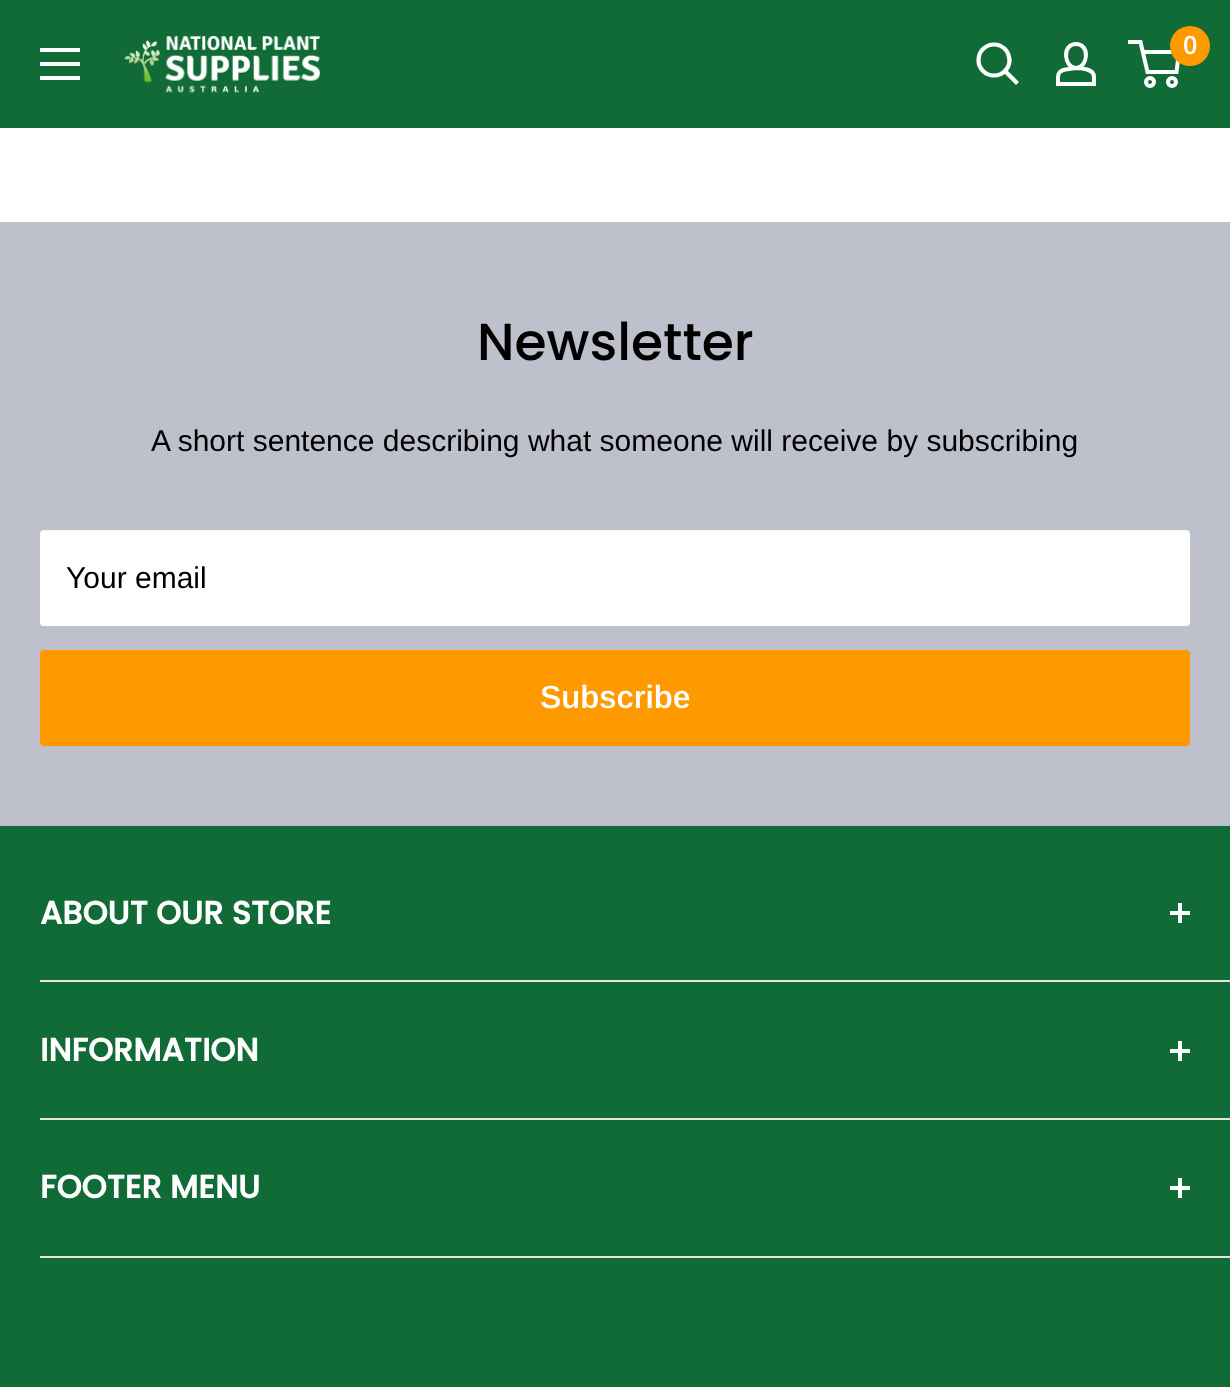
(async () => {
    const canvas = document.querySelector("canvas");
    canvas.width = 1230;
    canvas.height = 1387;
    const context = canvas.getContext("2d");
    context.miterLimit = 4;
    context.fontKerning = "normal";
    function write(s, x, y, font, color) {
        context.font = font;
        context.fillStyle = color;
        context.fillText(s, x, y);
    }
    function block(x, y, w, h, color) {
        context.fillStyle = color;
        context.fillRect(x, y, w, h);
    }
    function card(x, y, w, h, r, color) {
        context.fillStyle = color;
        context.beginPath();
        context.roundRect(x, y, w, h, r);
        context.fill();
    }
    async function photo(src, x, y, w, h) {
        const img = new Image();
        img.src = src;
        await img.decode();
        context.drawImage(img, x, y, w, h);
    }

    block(0, 0, 1230, 1387, "rgb(255, 255, 255)");
    block(0, 0, 1230, 128, "rgb(16, 107, 55)");
    context.fillStyle = "rgb(255, 255, 255)";
    context.beginPath();
    context.moveTo(40, 76);
    context.lineTo(80, 76);
    context.lineTo(80, 80);
    context.lineTo(40, 80);
    context.closePath();
    context.moveTo(40, 48);
    context.lineTo(80, 48);
    context.lineTo(80, 52);
    context.lineTo(40, 52);
    context.closePath();
    context.moveTo(40, 62);
    context.lineTo(80, 62);
    context.lineTo(80, 66);
    context.lineTo(40, 66);
    context.closePath();
    context.fill("evenodd");
    await photo("media/1.png", 124, 36, 196, 57);
    context.beginPath();
    context.moveTo(1016, 82);
    context.lineTo(1005.5, 71.5);
    context.strokeStyle = "rgb(255, 255, 255)";
    context.lineWidth = 4.2;
    context.lineCap = "square";
    context.stroke();
    context.beginPath();
    context.arc(994, 60, 15.5, 0, Math.PI * 2);
    context.stroke();
    context.beginPath();
    context.moveTo(1076, 68);
    context.bezierCurveTo(1080, 68, 1083.5, 68.5, 1087, 69.5);
    context.bezierCurveTo(1095.5, 72, 1094, 76.5, 1094, 84);
    context.lineTo(1058, 84);
    context.bezierCurveTo(1058, 76, 1056.5, 71.5, 1065.5, 69.5);
    context.closePath();
    context.moveTo(1076, 68);
    context.bezierCurveTo(1064, 68, 1061.5, 44, 1076, 44);
    context.bezierCurveTo(1090.5, 44, 1088, 68, 1076, 68);
    context.closePath();
    context.lineWidth = 4;
    context.lineCap = "butt";
    context.stroke();
    context.beginPath();
    context.arc(1150, 82, 4, 0, Math.PI * 2);
    context.stroke();
    context.beginPath();
    context.arc(1172, 82, 4, 0, Math.PI * 2);
    context.stroke();
    context.beginPath();
    context.moveTo(1142.5, 52);
    context.lineTo(1179, 52);
    context.lineTo(1176.5, 72);
    context.lineTo(1147.5, 72);
    context.lineTo(1140.5, 42);
    context.lineTo(1128, 42);
    context.stroke();
    context.fillStyle = "rgb(255, 153, 0)";
    context.beginPath();
    context.arc(1190, 46, 20, 0, Math.PI * 2);
    context.fill();
    write("0", 1183, 54, "600 26px Arimo", "rgb(255, 255, 255)");
    block(0, 222, 1230, 604, "rgb(190, 192, 203)");
    write("Newsletter", 477, 360, "500 52px Poppins", "rgb(0, 0, 0)");
    write("A short sentence describing what someone will receive by subscribing", 151, 451, "30px Arimo", "rgb(0, 0, 0)");
    card(40, 530, 1150, 96, 4, "rgb(255, 255, 255)");
    context.fillStyle = "rgba(231, 226, 222, 0.25)";
    context.beginPath();
    context.moveTo(44, 532);
    context.lineTo(1186, 532);
    context.bezierCurveTo(1188, 532, 1190, 534, 1190, 536);
    context.lineTo(1190, 534);
    context.bezierCurveTo(1190, 532, 1188, 530, 1186, 530);
    context.lineTo(44, 530);
    context.bezierCurveTo(42, 530, 40, 532, 40, 534);
    context.lineTo(40, 536);
    context.bezierCurveTo(40, 534, 42, 532, 44, 532);
    context.closePath();
    context.fill();
    write("Your email", 66, 588, "30px Arimo", "rgb(0, 0, 0)");
    card(40, 650, 1150, 96, 4, "rgb(255, 153, 0)");
    write("Subscribe", 540, 708, "600 32px Arimo", "rgb(255, 255, 255)");
    block(0, 826, 1230, 561, "rgb(16, 107, 55)");
    block(40, 980, 1190, 2, "rgb(231, 226, 222)");
    write("ABOUT OUR STORE", 40, 924, "bold 32px Poppins", "rgb(255, 255, 255)");
    block(1178, 903, 4, 20, "rgb(255, 255, 255)");
    block(1170, 911, 20, 4, "rgb(255, 255, 255)");
    block(40, 1118, 1190, 2, "rgb(231, 226, 222)");
    write("INFORMATION", 40, 1061, "bold 32px Poppins", "rgb(255, 255, 255)");
    block(1178, 1041, 4, 20, "rgb(255, 255, 255)");
    block(1170, 1049, 20, 4, "rgb(255, 255, 255)");
    block(40, 1256, 1190, 2, "rgb(231, 226, 222)");
    write("FOOTER MENU", 40, 1198, "bold 32px Poppins", "rgb(255, 255, 255)");
    block(1178, 1178, 4, 20, "rgb(255, 255, 255)");
    block(1170, 1186, 20, 4, "rgb(255, 255, 255)");
})();
